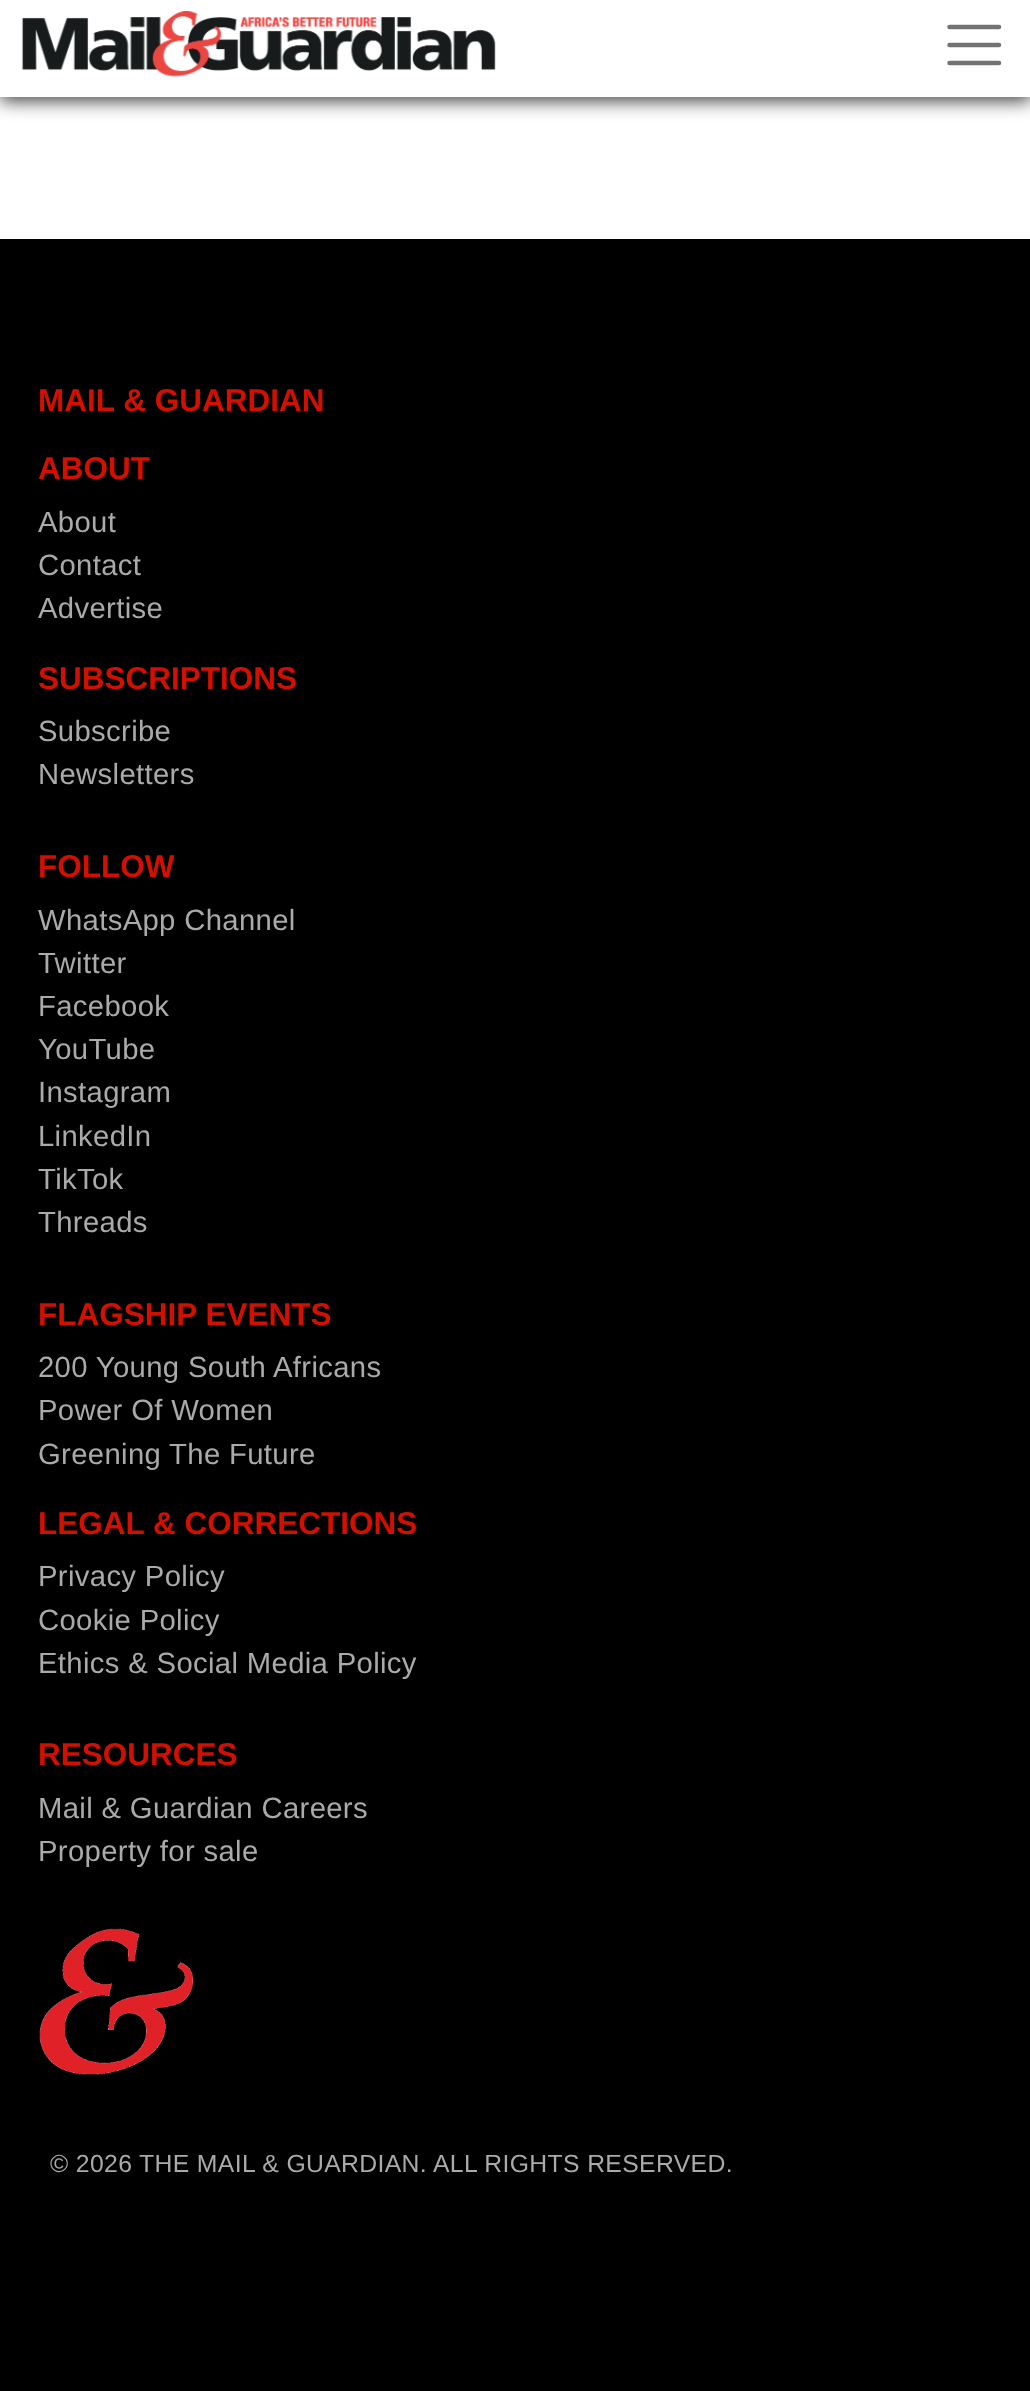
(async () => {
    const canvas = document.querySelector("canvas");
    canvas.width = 1030;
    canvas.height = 2391;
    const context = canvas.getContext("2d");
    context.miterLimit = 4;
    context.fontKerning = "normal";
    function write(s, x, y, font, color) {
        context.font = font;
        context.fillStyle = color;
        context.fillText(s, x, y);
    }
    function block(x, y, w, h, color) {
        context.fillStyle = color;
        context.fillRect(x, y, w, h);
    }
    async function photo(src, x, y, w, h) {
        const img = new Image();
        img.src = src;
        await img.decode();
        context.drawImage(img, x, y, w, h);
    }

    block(0, 0, 1030, 2391, "rgb(255, 255, 255)");
    context.fillStyle = "rgba(0, 0, 0, 0.75)";
    context.filter = "blur(9px)";
    context.beginPath();
    context.rect(0, 5, 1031, 96);
    context.fill();
    context.filter = "none";
    block(0, 0, 1030, 97, "rgb(255, 255, 255)");
    await photo("media/1.png", 21, 11, 475, 66);
    context.beginPath();
    context.moveTo(949.5, 27);
    context.lineTo(999, 27);
    context.moveTo(949.5, 45);
    context.lineTo(999, 45);
    context.moveTo(949.5, 63);
    context.lineTo(999, 63);
    context.strokeStyle = "rgb(115, 115, 115)";
    context.lineWidth = 4.5;
    context.lineCap = "round";
    context.stroke();
    block(0, 239, 1030, 2152, "rgb(0, 0, 0)");
    write("MAIL & GUARDIAN", 38, 411, "bold 31.5px Liberation Sans", "rgb(209, 16, 0)");
    write("ABOUT", 38, 479, "bold 31.5px Liberation Sans", "rgb(209, 16, 0)");
    context.letterSpacing = "0.35px";
    write("About", 38, 532, "29.25px Liberation Sans", "rgb(170, 170, 170)");
    write("Contact", 38, 575, "29.25px Liberation Sans", "rgb(170, 170, 170)");
    write("Advertise", 38, 618, "29.25px Liberation Sans", "rgb(170, 170, 170)");
    context.letterSpacing = "0px";
    write("SUBSCRIPTIONS", 38, 689, "bold 31.5px Liberation Sans", "rgb(209, 16, 0)");
    context.letterSpacing = "0.35px";
    write("Subscribe", 38, 741, "29.25px Liberation Sans", "rgb(170, 170, 170)");
    write("Newsletters", 38, 784, "29.25px Liberation Sans", "rgb(170, 170, 170)");
    context.letterSpacing = "0px";
    write("FOLLOW", 38, 877, "bold 31.5px Liberation Sans", "rgb(209, 16, 0)");
    context.letterSpacing = "0.35px";
    write("WhatsApp Channel", 38, 930, "29.25px Liberation Sans", "rgb(170, 170, 170)");
    write("Twitter", 38, 973, "29.25px Liberation Sans", "rgb(170, 170, 170)");
    write("Facebook", 38, 1016, "29.25px Liberation Sans", "rgb(170, 170, 170)");
    write("YouTube", 38, 1059, "29.25px Liberation Sans", "rgb(170, 170, 170)");
    write("Instagram", 38, 1102, "29.25px Liberation Sans", "rgb(170, 170, 170)");
    write("LinkedIn", 38, 1146, "29.25px Liberation Sans", "rgb(170, 170, 170)");
    write("TikTok", 38, 1189, "29.25px Liberation Sans", "rgb(170, 170, 170)");
    write("Threads", 38, 1232, "29.25px Liberation Sans", "rgb(170, 170, 170)");
    context.letterSpacing = "0px";
    write("FLAGSHIP EVENTS", 38, 1325, "bold 31.5px Liberation Sans", "rgb(209, 16, 0)");
    context.letterSpacing = "0.35px";
    write("200 Young South Africans", 38, 1377, "29.25px Liberation Sans", "rgb(170, 170, 170)");
    write("Power Of Women", 38, 1420, "29.25px Liberation Sans", "rgb(170, 170, 170)");
    write("Greening The Future", 38, 1464, "29.25px Liberation Sans", "rgb(170, 170, 170)");
    context.letterSpacing = "0px";
    write("LEGAL & CORRECTIONS", 38, 1534, "bold 31.5px Liberation Sans", "rgb(209, 16, 0)");
    context.letterSpacing = "0.35px";
    write("Privacy Policy", 38, 1586, "29.25px Liberation Sans", "rgb(170, 170, 170)");
    write("Cookie Policy", 38, 1630, "29.25px Liberation Sans", "rgb(170, 170, 170)");
    write("Ethics & Social Media Policy", 38, 1673, "29.25px Liberation Sans", "rgb(170, 170, 170)");
    context.letterSpacing = "0px";
    write("RESOURCES", 38, 1765, "bold 31.5px Liberation Sans", "rgb(209, 16, 0)");
    context.letterSpacing = "0.35px";
    write("Mail & Guardian Careers", 38, 1818, "29.25px Liberation Sans", "rgb(170, 170, 170)");
    write("Property for sale", 38, 1861, "29.25px Liberation Sans", "rgb(170, 170, 170)");
    await photo("media/2.png", 39, 1928, 154, 147);
    write("© 2026 THE MAIL & GUARDIAN. ALL RIGHTS RESERVED.", 50, 2172, "24.75px Liberation Sans", "rgb(170, 170, 170)");
})();
